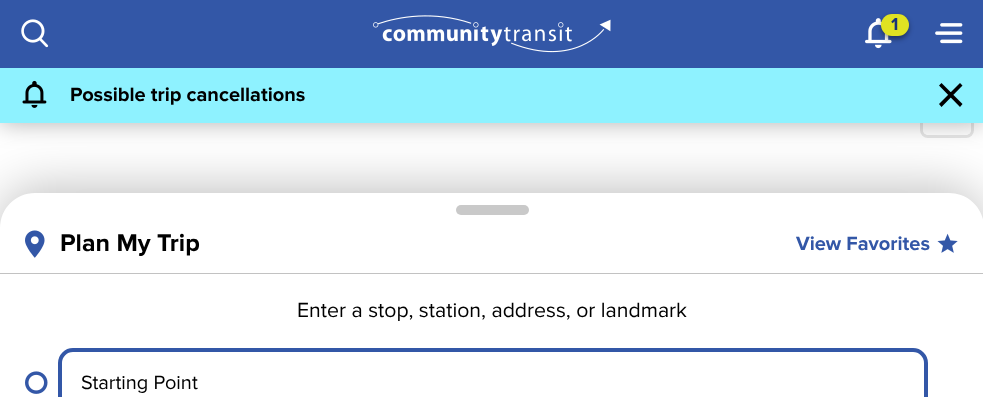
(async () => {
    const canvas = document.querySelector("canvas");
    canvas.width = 983;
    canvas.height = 397;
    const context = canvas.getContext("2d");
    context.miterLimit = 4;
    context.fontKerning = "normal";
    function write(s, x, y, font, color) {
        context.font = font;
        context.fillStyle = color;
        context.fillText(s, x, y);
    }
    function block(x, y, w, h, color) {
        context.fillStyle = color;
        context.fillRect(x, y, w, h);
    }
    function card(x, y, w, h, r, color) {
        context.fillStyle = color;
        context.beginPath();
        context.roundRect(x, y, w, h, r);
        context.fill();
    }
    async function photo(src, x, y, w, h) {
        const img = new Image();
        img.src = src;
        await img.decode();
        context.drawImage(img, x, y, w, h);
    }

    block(0, 0, 983, 397, "rgb(255, 255, 255)");
    context.beginPath();
    context.roundRect(921.5, 79.5, 51, 57, 6.5);
    context.strokeStyle = "rgb(230, 230, 230)";
    context.lineWidth = 3;
    context.stroke();
    card(923, 80, 48, 55, 5, "rgba(255, 255, 255, 0.95)");
    context.fillStyle = "rgba(0, 0, 0, 0.31)";
    context.filter = "blur(12.5px)";
    context.beginPath();
    context.rect(0, 68, 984, 55);
    context.fill();
    context.filter = "none";
    block(0, 0, 983, 68, "rgb(51, 87, 167)");
    await photo("media/1.png", 21, 19, 28, 29);
    await photo("media/2.png", 373, 15, 238, 38);
    await photo("media/3.png", 865, 18, 27, 31);
    context.fillStyle = "rgba(0, 0, 0, 0.4)";
    context.filter = "blur(2.5px)";
    context.beginPath();
    context.roundRect(881, 16, 28, 23, 11.5);
    context.fill();
    context.filter = "none";
    card(881, 14, 28, 22, 11, "rgb(224, 227, 34)");
    write("1", 891, 30, "bold 18px Proxima Nova", "rgb(23, 51, 120)");
    await photo("media/4.png", 935, 23, 28, 21);
    context.fillStyle = "rgba(0, 0, 0, 0.25)";
    context.filter = "blur(25px)";
    context.beginPath();
    context.roundRect(0, 188, 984, 205, 38);
    context.fill();
    context.filter = "none";
    block(0, 68, 983, 55, "rgb(142, 242, 255)");
    await photo("media/5.png", 22, 80, 25, 28);
    write("Possible trip cancellations", 70, 101, "bold 20px Proxima Nova", "rgb(0, 0, 0)");
    context.beginPath();
    context.moveTo(939, 85.5);
    context.lineTo(941.5, 83);
    context.lineTo(962.5, 104);
    context.lineTo(960, 107);
    context.closePath();
    context.moveTo(960, 83);
    context.lineTo(962.5, 85.5);
    context.lineTo(941.5, 107);
    context.lineTo(939, 104);
    context.closePath();
    context.fill();
    context.fillStyle = "rgb(255, 255, 255)";
    context.beginPath();
    context.moveTo(35, 193);
    context.lineTo(949, 193);
    context.bezierCurveTo(968.5, 193, 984, 208.5, 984, 228);
    context.lineTo(0, 228);
    context.bezierCurveTo(0, 208.5, 15.5, 193, 35, 193);
    context.closePath();
    context.fill();
    card(456, 205, 73, 10, 5, "rgb(201, 201, 201)");
    block(0, 228, 983, 169, "rgb(255, 255, 255)");
    block(0, 273, 983, 1, "rgb(194, 194, 194)");
    await photo("media/6.png", 25, 230, 20, 28);
    write("Plan My Trip", 60, 251, "bold 25px Proxima Nova", "rgb(0, 0, 0)");
    write("View Favorites", 796, 250, "bold 20px Proxima Nova", "rgb(51, 87, 167)");
    await photo("media/7.png", 937, 233, 21, 20);
    write("Enter a stop, station, address, or landmark", 297, 317, "21.25px Proxima Nova", "rgb(0, 0, 0)");
    await photo("media/8.png", 25, 371, 23, 23);
    context.beginPath();
    context.roundRect(60, 350, 866, 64, 13);
    context.strokeStyle = "rgb(51, 87, 167)";
    context.lineWidth = 4;
    context.stroke();
    write("Starting Point", 81, 389, "20px Proxima Nova", "rgb(0, 0, 0)");
})();
